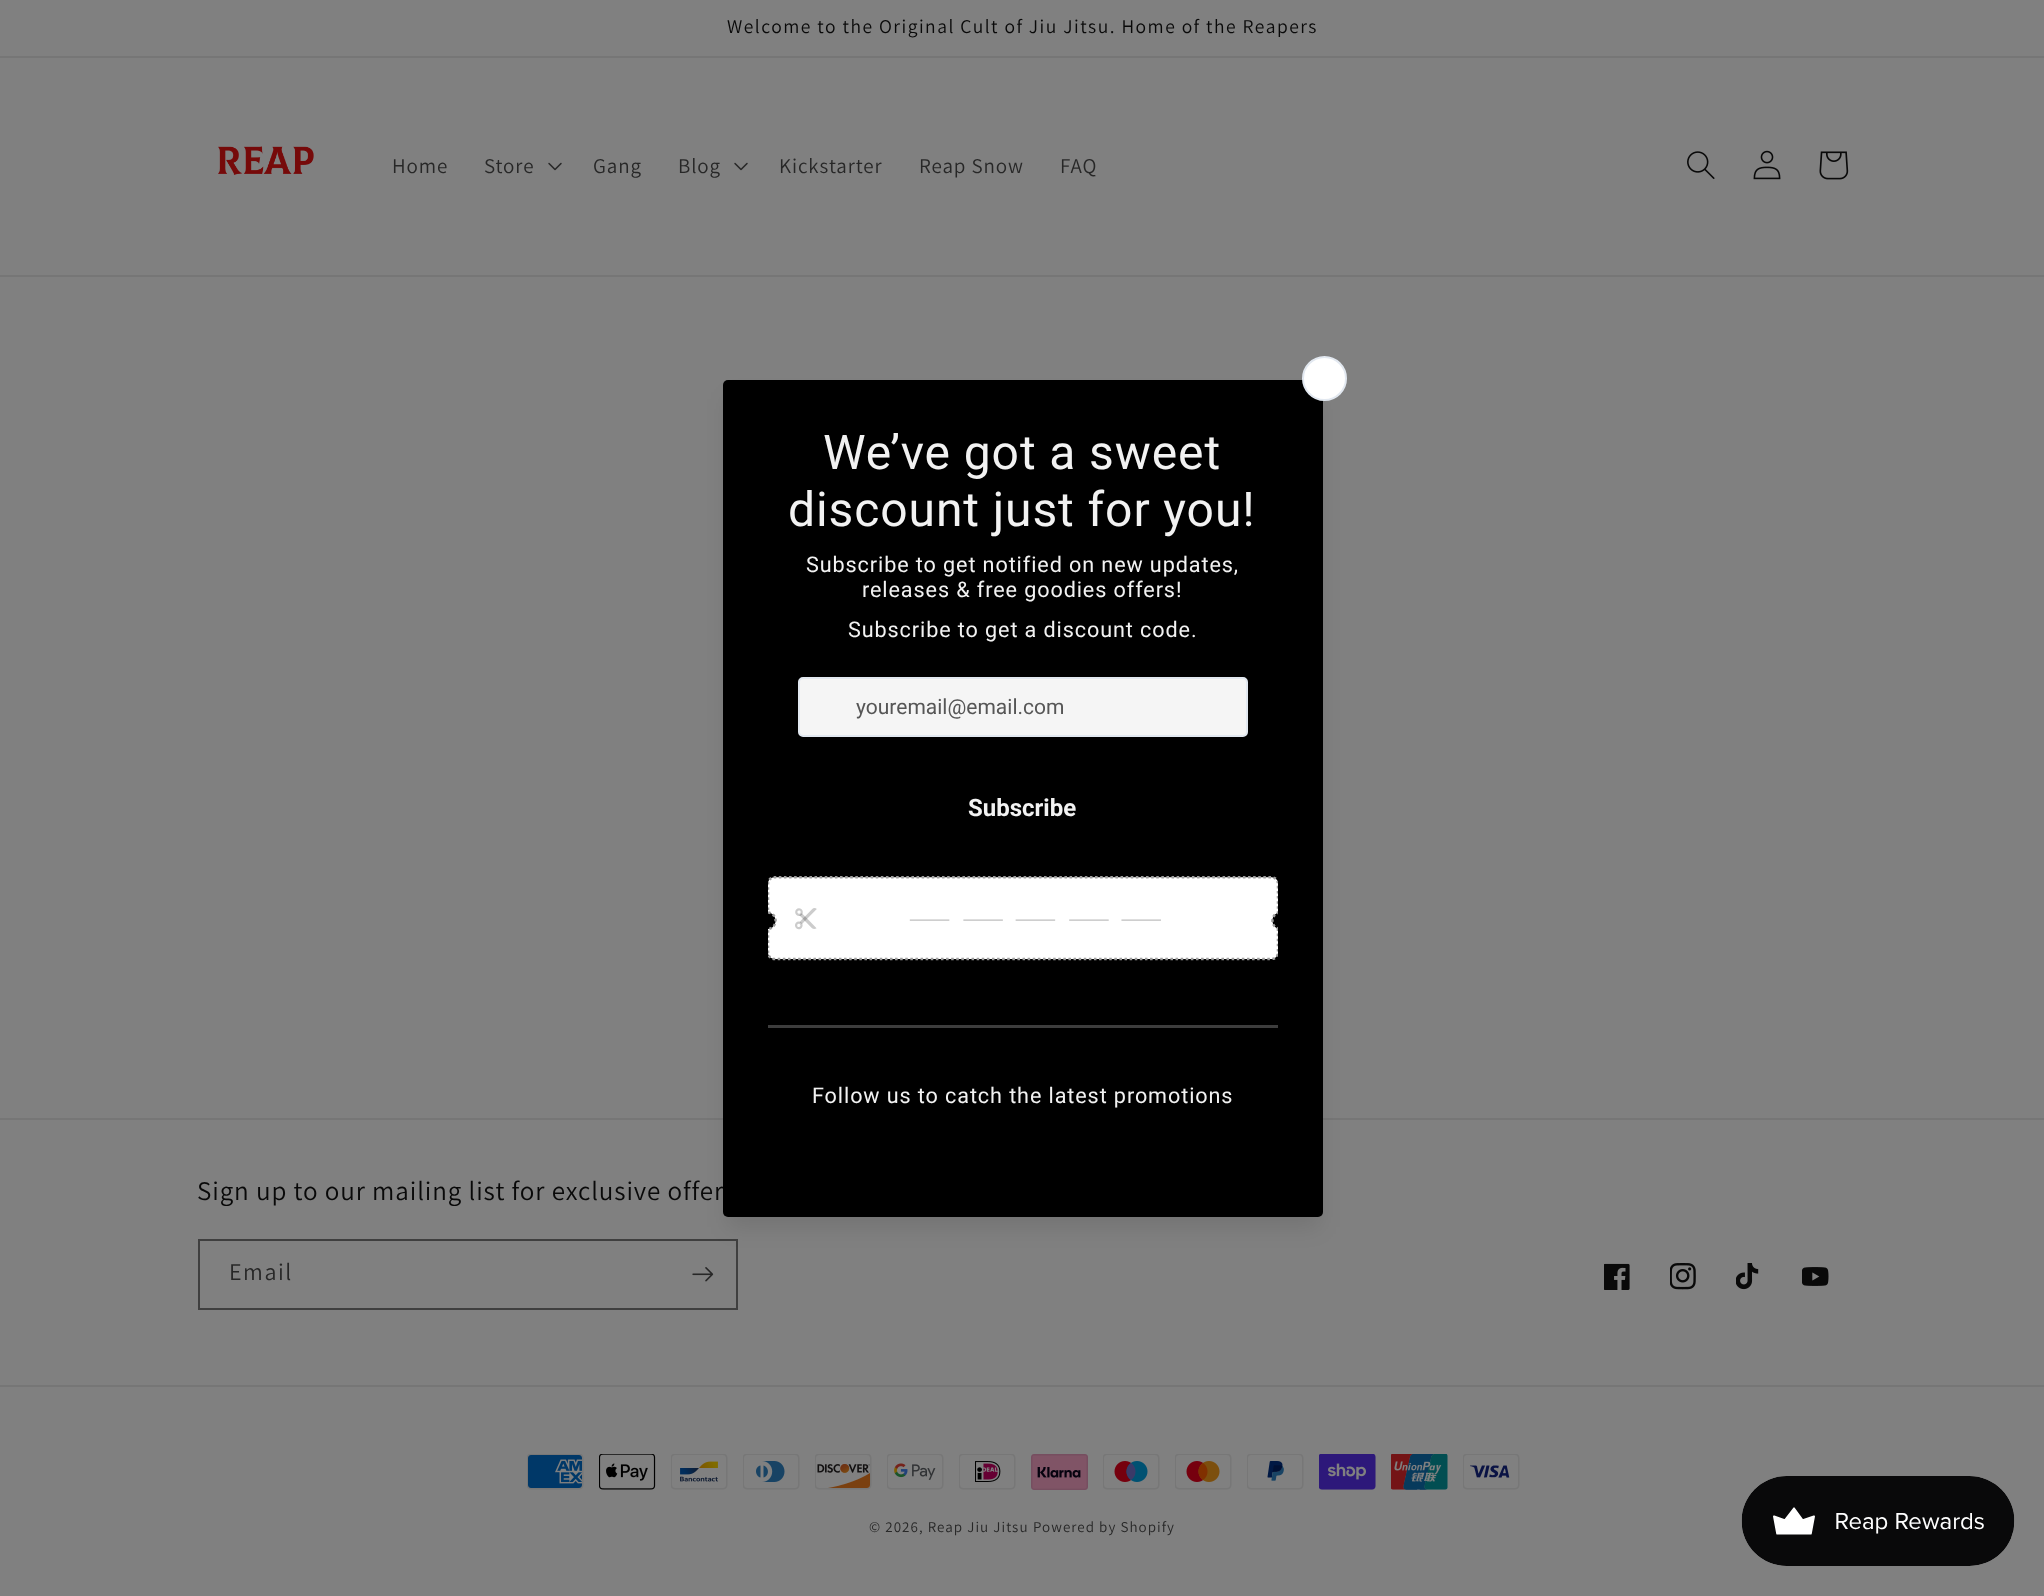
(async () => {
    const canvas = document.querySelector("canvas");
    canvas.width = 2044;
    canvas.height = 1596;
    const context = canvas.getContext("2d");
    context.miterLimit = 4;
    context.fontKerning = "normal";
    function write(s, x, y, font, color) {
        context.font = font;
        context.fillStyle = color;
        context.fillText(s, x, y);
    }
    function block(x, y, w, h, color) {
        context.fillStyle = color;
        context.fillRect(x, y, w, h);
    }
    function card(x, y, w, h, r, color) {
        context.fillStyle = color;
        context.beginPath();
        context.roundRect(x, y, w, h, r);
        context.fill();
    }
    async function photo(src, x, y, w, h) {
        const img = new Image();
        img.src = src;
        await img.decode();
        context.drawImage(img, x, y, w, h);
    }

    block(0, 0, 2044, 1596, "rgb(128, 128, 128)");
    block(0, 56, 2044, 2, "rgb(118, 118, 118)");
    context.letterSpacing = "1.5px";
    write("Welcome to the Original Cult of Jiu Jitsu. Home of the Reapers", 727, 33, "19.5px Assistant", "rgb(9, 9, 9)");
    block(0, 275, 2044, 2, "rgb(118, 118, 118)");
    await photo("media/1.png", 218, 146, 96, 29);
    context.letterSpacing = "0.9px";
    write("Home", 392, 173, "21px Assistant", "rgb(39, 39, 39)");
    write("Store", 484, 173, "21px Assistant", "rgb(39, 39, 39)");
    await photo("media/2.png", 548, 162, 14, 9);
    write("Gang", 593, 173, "21px Assistant", "rgb(39, 39, 39)");
    write("Blog", 678, 173, "21px Assistant", "rgb(39, 39, 39)");
    await photo("media/2.png", 734, 162, 14, 9);
    write("Kickstarter", 779, 173, "21px Assistant", "rgb(39, 39, 39)");
    write("Reap Snow", 919, 173, "21px Assistant", "rgb(39, 39, 39)");
    write("FAQ", 1060, 173, "21px Assistant", "rgb(39, 39, 39)");
    await photo("media/3.png", 1687, 151, 28, 28);
    await photo("media/4.png", 1753, 150, 28, 30);
    await photo("media/5.png", 1819, 151, 30, 29);
    block(0, 1118, 2044, 2, "rgb(118, 118, 118)");
    context.strokeStyle = "rgb(63, 63, 63)";
    context.lineWidth = 2;
    context.strokeRect(199, 1240, 538, 69);
    context.fillStyle = "rgba(0, 0, 0, 0.1)";
    context.filter = "blur(11px)";
    context.beginPath();
    context.rect(728, 399, 591, 828);
    context.fill();
    context.filter = "none";
    write("Sign up to our mailing list for exclusive offer", 197, 1200, "27px Assistant", "rgb(9, 9, 9)");
    card(723, 380, 600, 837, 5, "rgb(0, 0, 0)");
    context.fillStyle = "rgb(255, 255, 255)";
    context.beginPath();
    context.arc(1324.5, 378.5, 21.5, 0, Math.PI * 2);
    context.fill();
    context.strokeStyle = "rgb(226, 232, 240)";
    context.stroke();
    write("We’ve got a sweet", 823, 469, "48px Roboto", "rgb(242, 242, 242)");
    write("discount just for you!", 788, 526, "48px Roboto", "rgb(242, 242, 242)");
    write("Subscribe to get notified on new updates,", 806, 572, "21.6px Roboto", "rgb(242, 242, 242)");
    write("releases & free goodies offers!", 862, 597, "21.6px Roboto", "rgb(242, 242, 242)");
    write("Subscribe to get a discount code.", 848, 637, "21.6px Roboto", "rgb(242, 242, 242)");
    context.fillStyle = "rgb(245, 245, 245)";
    context.beginPath();
    context.roundRect(799, 678, 448, 58, 4);
    context.fill();
    context.stroke();
    context.letterSpacing = "0px";
    write("youremail@email.com", 856, 714, "21px Roboto", "rgb(86, 86, 86)");
    write("Subscribe", 968, 816, "bold 24px Roboto", "rgb(242, 242, 242)");
    await photo("media/6.png", 768, 876, 510, 85);
    block(768, 1025, 510, 3, "rgb(61, 61, 61)");
    context.letterSpacing = "0.9px";
    write("Follow us to catch the latest promotions", 812, 1103, "21.6px Roboto", "rgb(242, 242, 242)");
    context.letterSpacing = "1.5px";
    write("Email", 229, 1280, "24px Assistant", "rgb(39, 39, 39)");
    await photo("media/7.png", 692, 1267, 22, 15);
    await photo("media/8.png", 1604, 1263, 26, 27);
    await photo("media/9.png", 1670, 1263, 26, 27);
    await photo("media/10.png", 1736, 1263, 23, 27);
    await photo("media/11.png", 1802, 1267, 27, 19);
    block(0, 1385, 2044, 2, "rgb(118, 118, 118)");
    await photo("media/12.png", 527, 1454, 57, 36);
    await photo("media/13.png", 599, 1454, 57, 36);
    await photo("media/14.png", 671, 1454, 57, 36);
    await photo("media/15.png", 743, 1454, 57, 36);
    await photo("media/16.png", 815, 1454, 57, 36);
    await photo("media/17.png", 887, 1454, 57, 36);
    await photo("media/18.png", 959, 1454, 57, 36);
    await photo("media/19.png", 1031, 1454, 57, 36);
    await photo("media/20.png", 1103, 1454, 57, 36);
    await photo("media/21.png", 1175, 1454, 57, 36);
    await photo("media/22.png", 1247, 1454, 57, 36);
    await photo("media/23.png", 1319, 1454, 57, 36);
    await photo("media/24.png", 1391, 1454, 57, 36);
    await photo("media/25.png", 1463, 1454, 57, 36);
    context.letterSpacing = "1.05px";
    write("© 2026, Reap Jiu Jitsu", 869, 1532, "15px Assistant", "rgb(39, 39, 39)");
    write("Powered by Shopify", 1033, 1532, "15px Assistant", "rgb(39, 39, 39)");
    await photo("media/26.png", 1741, 1476, 274, 90);
})();
